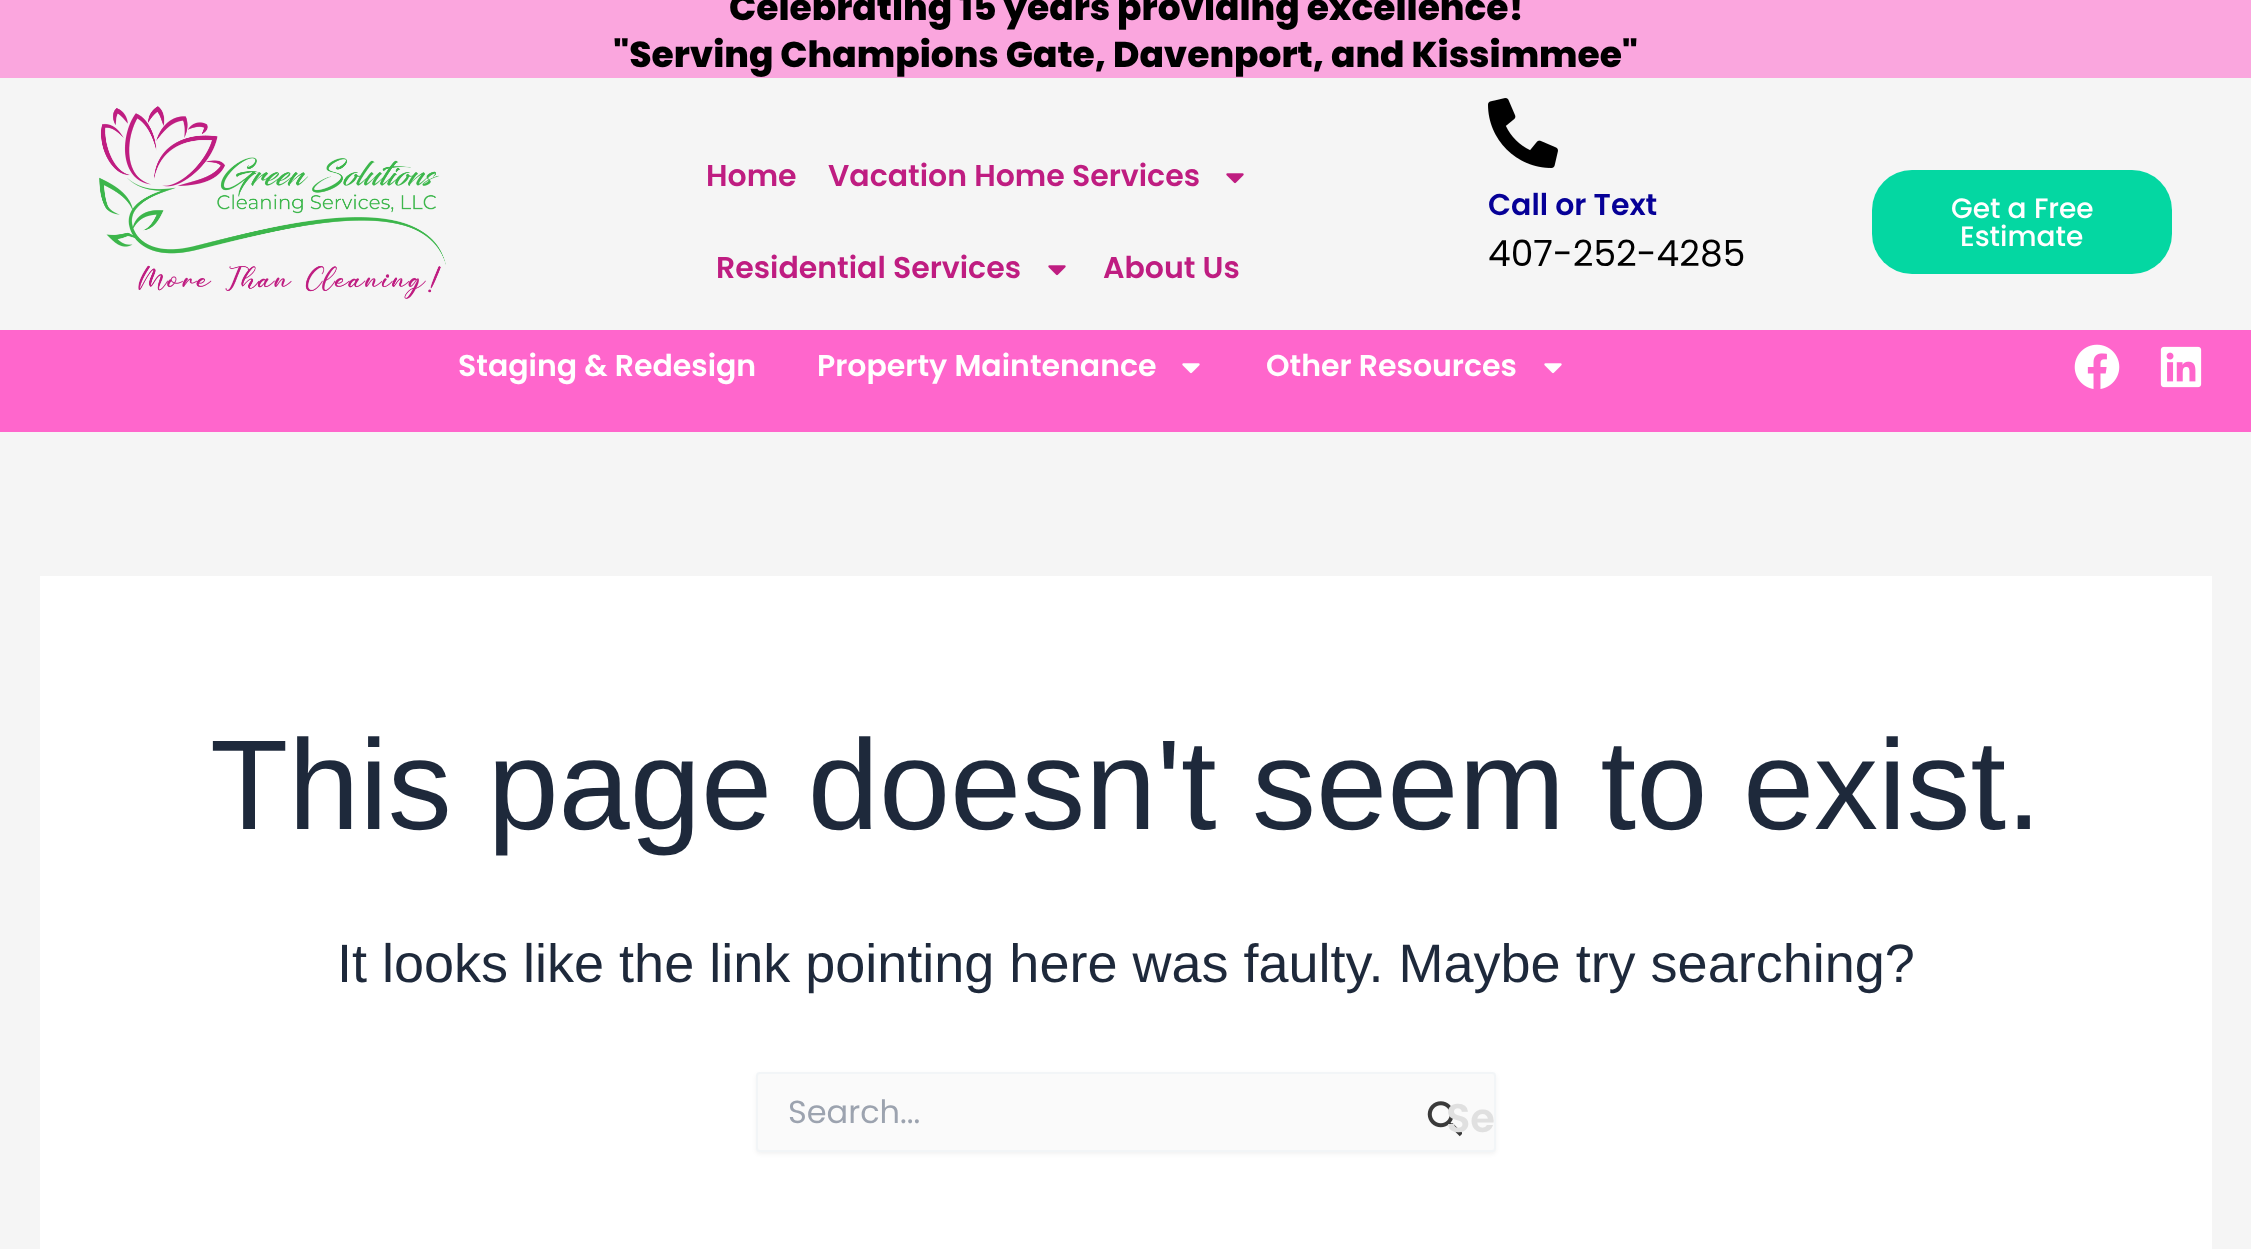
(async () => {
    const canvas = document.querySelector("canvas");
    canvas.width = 2251;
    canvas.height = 1249;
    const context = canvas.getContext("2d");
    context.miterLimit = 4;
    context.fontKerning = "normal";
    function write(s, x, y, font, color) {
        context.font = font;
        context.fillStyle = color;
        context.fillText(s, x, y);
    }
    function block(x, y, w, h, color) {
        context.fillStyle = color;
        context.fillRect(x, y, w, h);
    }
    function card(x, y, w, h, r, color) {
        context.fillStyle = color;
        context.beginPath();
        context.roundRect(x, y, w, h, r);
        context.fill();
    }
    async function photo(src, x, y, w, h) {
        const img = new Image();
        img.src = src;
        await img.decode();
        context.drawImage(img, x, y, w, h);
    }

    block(0, 0, 2251, 1249, "rgb(245, 245, 245)");
    block(0, 0, 2251, 30, "rgb(251, 166, 222)");
    write("Celebrating 15 years providing excellence!", 729, 20, "800 36px Poppins", "rgb(0, 0, 0)");
    block(0, 30, 2251, 48, "rgb(250, 166, 222)");
    write("\"Serving Champions Gate, Davenport, and Kissimmee\"", 613, 67, "800 36px Poppins", "rgb(0, 0, 0)");
    await photo("media/1.png", 99, 106, 347, 193);
    write("Home", 706, 186, "600 30px Poppins", "rgb(191, 29, 129)");
    write("Vacation Home Services", 828, 186, "600 30px Poppins", "rgb(191, 29, 129)");
    await photo("media/2.png", 1226, 173, 18, 11);
    write("Residential Services", 716, 278, "600 30px Poppins", "rgb(191, 29, 129)");
    await photo("media/2.png", 1048, 265, 18, 11);
    write("About Us", 1103, 278, "600 30px Poppins", "rgb(191, 29, 129)");
    await photo("media/3.png", 1488, 98, 70, 70);
    write("Call or Text", 1488, 215, "600 30px Poppins", "rgb(6, 0, 151)");
    write("407-252-4285", 1488, 266, "36px Poppins", "rgb(0, 0, 0)");
    card(1872, 170, 300, 104, 40, "rgb(4, 215, 162)");
    write("Get a Free", 1951, 218, "500 28px Poppins", "rgb(255, 255, 255)");
    write("Estimate", 1960, 246, "500 28px Poppins", "rgb(255, 255, 255)");
    block(0, 330, 2251, 102, "rgb(255, 102, 204)");
    write("Staging & Redesign", 458, 376, "600 30px Poppins", "rgb(255, 255, 255)");
    write("Property Maintenance", 817, 376, "600 30px Poppins", "rgb(255, 255, 255)");
    await photo("media/4.png", 1182, 363, 18, 11);
    write("Other Resources", 1266, 376, "600 30px Poppins", "rgb(255, 255, 255)");
    await photo("media/4.png", 1544, 363, 18, 11);
    await photo("media/5.png", 2074, 344, 46, 45);
    await photo("media/6.png", 2160, 346, 42, 42);
    block(40, 576, 2172, 673, "rgb(255, 255, 255)");
    write("This page doesn't seem to exist.", 210, 829, "128px Liberation Sans", "rgb(30, 41, 59)");
    write("It looks like the link pointing here was faulty. Maybe try searching?", 337, 982, "54px Liberation Sans", "rgb(30, 41, 59)");
    context.fillStyle = "rgba(0, 0, 0, 0.05)";
    context.filter = "blur(2px)";
    context.beginPath();
    context.roundRect(756, 1074, 740, 80, 4);
    context.fill();
    context.filter = "none";
    context.fillStyle = "rgb(250, 250, 250)";
    context.beginPath();
    context.roundRect(757, 1073, 738, 78, 3);
    context.fill();
    context.strokeStyle = "rgb(242, 245, 247)";
    context.lineWidth = 2;
    context.stroke();
    write("Search...", 788, 1123, "32px Poppins", "rgb(156, 163, 175)");
    await photo("media/7.png", 1427, 1101, 35, 36);
    write("Se", 1446, 1132, "600 40px Poppins", "rgb(224, 224, 224)");
})();
